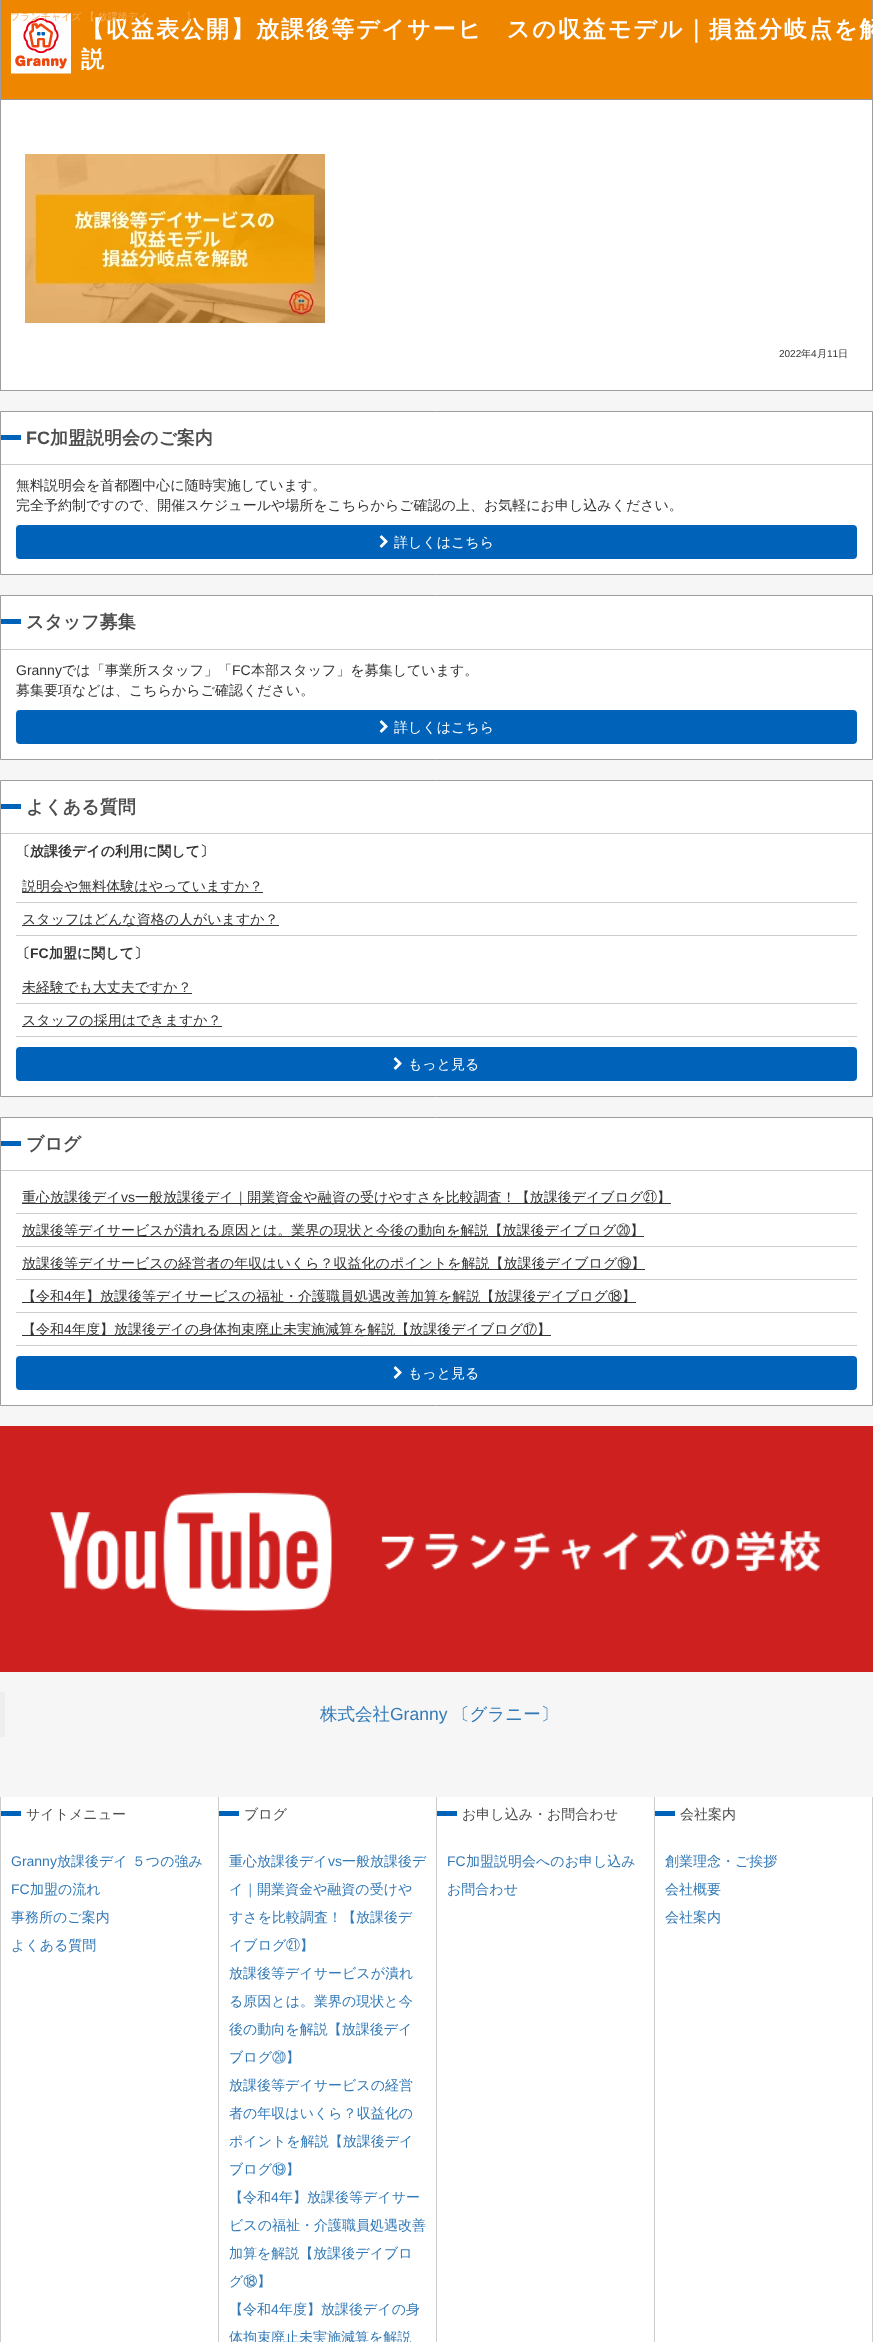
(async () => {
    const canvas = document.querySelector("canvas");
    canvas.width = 873;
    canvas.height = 2342;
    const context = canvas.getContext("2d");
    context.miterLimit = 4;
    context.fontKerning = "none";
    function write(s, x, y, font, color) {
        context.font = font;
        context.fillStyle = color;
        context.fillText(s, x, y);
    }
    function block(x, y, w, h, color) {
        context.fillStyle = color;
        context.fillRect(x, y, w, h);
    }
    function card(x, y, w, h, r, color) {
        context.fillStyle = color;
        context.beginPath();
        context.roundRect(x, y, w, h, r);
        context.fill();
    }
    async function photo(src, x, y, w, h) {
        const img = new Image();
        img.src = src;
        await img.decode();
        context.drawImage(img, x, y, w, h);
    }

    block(0, 0, 873, 2342, "rgb(246, 246, 246)");
    block(1, 100, 871, 290, "rgb(255, 255, 255)");
    context.strokeStyle = "rgb(157, 157, 157)";
    context.strokeRect(0.5, -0.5, 872, 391);
    block(1, 0, 871, 99, "rgb(239, 134, 0)");
    await photo("media/1.png", 11, 13, 60, 61);
    context.letterSpacing = "2px";
    write("【収益表公開】放課後等デイサービスの収益モデル｜損益分岐点を解", 81, 37, "bold 23px WenQuanYi Zen Hei", "rgb(255, 255, 255)");
    context.letterSpacing = "0px";
    write("フランチャイズ 【 放課後デイ", 10, 20, "500 10px WenQuanYi Zen Hei", "rgb(244, 174, 87)");
    write("】", 186, 20, "500 10px WenQuanYi Zen Hei", "rgb(242, 156, 46)");
    block(1, 99, 871, 1, "rgb(153, 153, 153)");
    context.letterSpacing = "2px";
    write("説", 81, 67, "bold 23px WenQuanYi Zen Hei", "rgb(255, 255, 255)");
    await photo("media/2.png", 25, 154, 300, 169);
    context.letterSpacing = "0px";
    write("2022", 779, 357, "10px Liberation Sans", "rgb(51, 51, 51)");
    write("年", 801, 357, "500 10px WenQuanYi Zen Hei", "rgb(51, 51, 51)");
    write("4", 811, 357, "10px Liberation Sans", "rgb(51, 51, 51)");
    write("月", 817, 357, "500 10px WenQuanYi Zen Hei", "rgb(51, 51, 51)");
    write("11", 827, 357, "10px Liberation Sans", "rgb(51, 51, 51)");
    write("日", 838, 357, "500 10px WenQuanYi Zen Hei", "rgb(51, 51, 51)");
    context.fillStyle = "rgb(255, 255, 255)";
    context.beginPath();
    context.rect(0.5, 411.5, 872, 163);
    context.fill();
    context.stroke();
    block(1, 464, 871, 1, "rgb(204, 204, 204)");
    block(1, 435, 20, 5, "rgb(0, 99, 185)");
    write("FC", 26, 444, "bold 18px Liberation Sans", "rgb(77, 77, 77)");
    write("加盟説明会のご案内", 50, 444, "bold 18px WenQuanYi Zen Hei", "rgb(77, 77, 77)");
    write("無料説明会を首都圏中心に随時実施しています。", 16, 490, "500 14px WenQuanYi Zen Hei", "rgb(51, 51, 51)");
    write("完全予約制ですので、開催スケジュールや場所をこちらからご確認の上、お気軽にお申し込みください。", 16, 510, "500 14px WenQuanYi Zen Hei", "rgb(51, 51, 51)");
    card(16, 525, 841, 34, 4, "rgb(0, 99, 185)");
    await photo("media/3.png", 379, 535, 9, 13);
    write("詳しくはこちら", 394, 547, "500 14px WenQuanYi Zen Hei", "rgb(255, 255, 255)");
    context.beginPath();
    context.rect(0.5, 595.5, 872, 164);
    context.fill();
    context.stroke();
    block(1, 649, 871, 1, "rgb(204, 204, 204)");
    block(1, 619, 20, 5, "rgb(0, 99, 185)");
    write("スタッフ募集", 26, 628, "bold 18px WenQuanYi Zen Hei", "rgb(77, 77, 77)");
    write("Granny", 16, 675, "14px Liberation Sans", "rgb(51, 51, 51)");
    write("では「事業所スタッフ」「", 62, 675, "500 14px WenQuanYi Zen Hei", "rgb(51, 51, 51)");
    write("FC", 232, 675, "14px Liberation Sans", "rgb(51, 51, 51)");
    write("本部スタッフ」を募集しています。", 251, 675, "500 14px WenQuanYi Zen Hei", "rgb(51, 51, 51)");
    write("募集要項などは、こちらからご確認ください。", 16, 695, "500 14px WenQuanYi Zen Hei", "rgb(51, 51, 51)");
    card(16, 710, 841, 34, 4, "rgb(0, 99, 185)");
    await photo("media/3.png", 379, 720, 9, 13);
    write("詳しくはこちら", 394, 732, "500 14px WenQuanYi Zen Hei", "rgb(255, 255, 255)");
    context.beginPath();
    context.rect(0.5, 780.5, 872, 316);
    context.fill();
    context.stroke();
    block(1, 833, 871, 1, "rgb(204, 204, 204)");
    block(1, 804, 20, 5, "rgb(0, 99, 185)");
    write("よくある質問", 26, 813, "bold 18px WenQuanYi Zen Hei", "rgb(77, 77, 77)");
    write("〔放課後デイの利用に関して〕", 16, 856, "bold 14px WenQuanYi Zen Hei", "rgb(51, 51, 51)");
    block(16, 902, 841, 1, "rgb(204, 204, 204)");
    block(22, 892, 241, 1, "rgb(51, 51, 51)");
    write("説明会や無料体験はやっていますか？", 22, 891, "500 14px WenQuanYi Zen Hei", "rgb(51, 51, 51)");
    block(16, 935, 841, 1, "rgb(204, 204, 204)");
    block(22, 925, 257, 1, "rgb(51, 51, 51)");
    write("スタッフはどんな資格の人がいますか？", 22, 924, "500 14px WenQuanYi Zen Hei", "rgb(51, 51, 51)");
    write("〔", 16, 958, "bold 14px WenQuanYi Zen Hei", "rgb(51, 51, 51)");
    write("FC", 30, 958, "bold 14px Liberation Sans", "rgb(51, 51, 51)");
    write("加盟に関して〕", 49, 958, "bold 14px WenQuanYi Zen Hei", "rgb(51, 51, 51)");
    block(16, 1003, 841, 1, "rgb(204, 204, 204)");
    block(22, 993, 170, 1, "rgb(51, 51, 51)");
    write("未経験でも大丈夫ですか？", 22, 992, "500 14px WenQuanYi Zen Hei", "rgb(51, 51, 51)");
    block(16, 1036, 841, 1, "rgb(204, 204, 204)");
    block(22, 1026, 200, 1, "rgb(51, 51, 51)");
    write("スタッフの採用はできますか？", 22, 1025, "500 14px WenQuanYi Zen Hei", "rgb(51, 51, 51)");
    card(16, 1047, 841, 34, 4, "rgb(0, 99, 185)");
    await photo("media/3.png", 393, 1057, 9, 13);
    write("もっと見る", 408, 1069, "500 14px WenQuanYi Zen Hei", "rgb(255, 255, 255)");
    context.beginPath();
    context.rect(0.5, 1117.5, 872, 288);
    context.fill();
    context.stroke();
    block(1, 1170, 871, 1, "rgb(204, 204, 204)");
    block(1, 1141, 20, 5, "rgb(0, 99, 185)");
    write("ブログ", 26, 1150, "bold 18px WenQuanYi Zen Hei", "rgb(77, 77, 77)");
    block(16, 1213, 841, 1, "rgb(204, 204, 204)");
    block(22, 1203, 649, 1, "rgb(51, 51, 51)");
    write("重心放課後デイ", 22, 1202, "500 14px WenQuanYi Zen Hei", "rgb(51, 51, 51)");
    write("vs", 121, 1202, "14px Liberation Sans", "rgb(51, 51, 51)");
    write("一般放課後デイ｜開業資金や融資の受けやすさを比較調査！【放課後デイブログ", 135, 1202, "500 14px WenQuanYi Zen Hei", "rgb(51, 51, 51)");
    write("㉑", 643, 1202, "14px IPAPGothic", "rgb(51, 51, 51)");
    write("】", 657, 1202, "500 14px WenQuanYi Zen Hei", "rgb(51, 51, 51)");
    block(16, 1246, 841, 1, "rgb(204, 204, 204)");
    block(22, 1236, 622, 1, "rgb(51, 51, 51)");
    write("放課後等デイサービスが潰れる原因とは。業界の現状と今後の動向を解説【放課後デイブログ⑳】", 22, 1235, "500 14px WenQuanYi Zen Hei", "rgb(51, 51, 51)");
    block(16, 1279, 841, 1, "rgb(204, 204, 204)");
    block(22, 1269, 623, 1, "rgb(51, 51, 51)");
    write("放課後等デイサービスの経営者の年収はいくら？収益化のポイントを解説【放課後デイブログ⑲】", 22, 1268, "500 14px WenQuanYi Zen Hei", "rgb(51, 51, 51)");
    block(16, 1312, 841, 1, "rgb(204, 204, 204)");
    block(22, 1302, 614, 1, "rgb(51, 51, 51)");
    write("【令和", 22, 1301, "500 14px WenQuanYi Zen Hei", "rgb(51, 51, 51)");
    write("4", 64, 1301, "14px Liberation Sans", "rgb(51, 51, 51)");
    write("年】放課後等デイサービスの福祉・介護職員処遇改善加算を解説【放課後デイブログ⑱】", 72, 1301, "500 14px WenQuanYi Zen Hei", "rgb(51, 51, 51)");
    block(16, 1345, 841, 1, "rgb(204, 204, 204)");
    block(22, 1335, 529, 1, "rgb(51, 51, 51)");
    write("【令和", 22, 1334, "500 14px WenQuanYi Zen Hei", "rgb(51, 51, 51)");
    write("4", 64, 1334, "14px Liberation Sans", "rgb(51, 51, 51)");
    write("年度】放課後デイの身体拘束廃止未実施減算を解説【放課後デイブログ⑰】", 72, 1334, "500 14px WenQuanYi Zen Hei", "rgb(51, 51, 51)");
    card(16, 1356, 841, 34, 4, "rgb(0, 99, 185)");
    await photo("media/3.png", 393, 1366, 9, 13);
    write("もっと見る", 408, 1378, "500 14px WenQuanYi Zen Hei", "rgb(255, 255, 255)");
    await photo("media/4.png", 0, 1426, 873, 246);
    block(0, 1692, 5, 45, "rgb(238, 238, 238)");
    write("株式会社", 320, 1720, "500 17.5px WenQuanYi Zen Hei", "rgb(51, 122, 183)");
    write("Granny", 390, 1720, "17.5px Liberation Sans", "rgb(51, 122, 183)");
    write("〔グラニー〕", 452, 1720, "500 17.5px WenQuanYi Zen Hei", "rgb(51, 122, 183)");
    block(1, 1797, 871, 545, "rgb(255, 255, 255)");
    block(0, 1797, 1, 545, "rgb(204, 204, 204)");
    block(218, 1797, 1, 545, "rgb(204, 204, 204)");
    block(1, 1811, 20, 5, "rgb(0, 99, 185)");
    write("サイトメニュー", 26, 1819, "500 14px WenQuanYi Zen Hei", "rgb(77, 77, 77)");
    write("Granny", 11, 1866, "14px Liberation Sans", "rgb(51, 122, 183)");
    write("放課後デイ ５つの強み", 57, 1866, "500 14px WenQuanYi Zen Hei", "rgb(51, 122, 183)");
    write("FC", 11, 1894, "14px Liberation Sans", "rgb(51, 122, 183)");
    write("加盟の流れ", 30, 1894, "500 14px WenQuanYi Zen Hei", "rgb(51, 122, 183)");
    write("事務所のご案内", 11, 1922, "500 14px WenQuanYi Zen Hei", "rgb(51, 122, 183)");
    write("よくある質問", 11, 1950, "500 14px WenQuanYi Zen Hei", "rgb(51, 122, 183)");
    block(436, 1797, 1, 545, "rgb(204, 204, 204)");
    block(219, 1811, 20, 5, "rgb(0, 99, 185)");
    write("ブログ", 244, 1819, "500 14px WenQuanYi Zen Hei", "rgb(77, 77, 77)");
    write("重心放課後デイ", 229, 1866, "500 14px WenQuanYi Zen Hei", "rgb(51, 122, 183)");
    write("vs", 328, 1866, "14px Liberation Sans", "rgb(51, 122, 183)");
    write("一般放課後デ", 342, 1866, "500 14px WenQuanYi Zen Hei", "rgb(51, 122, 183)");
    write("イ｜開業資金や融資の受けや", 229, 1894, "500 14px WenQuanYi Zen Hei", "rgb(51, 122, 183)");
    write("すさを比較調査！【放課後デ", 229, 1922, "500 14px WenQuanYi Zen Hei", "rgb(51, 122, 183)");
    write("イブログ", 229, 1950, "500 14px WenQuanYi Zen Hei", "rgb(51, 122, 183)");
    write("㉑", 286, 1950, "14px IPAPGothic", "rgb(51, 122, 183)");
    write("】", 300, 1950, "500 14px WenQuanYi Zen Hei", "rgb(51, 122, 183)");
    write("放課後等デイサービスが潰れ", 229, 1978, "500 14px WenQuanYi Zen Hei", "rgb(51, 122, 183)");
    write("る原因とは。業界の現状と今", 229, 2006, "500 14px WenQuanYi Zen Hei", "rgb(51, 122, 183)");
    write("後の動向を解説【放課後デイ", 229, 2034, "500 14px WenQuanYi Zen Hei", "rgb(51, 122, 183)");
    write("ブログ⑳】", 229, 2062, "500 14px WenQuanYi Zen Hei", "rgb(51, 122, 183)");
    write("放課後等デイサービスの経営", 229, 2090, "500 14px WenQuanYi Zen Hei", "rgb(51, 122, 183)");
    write("者の年収はいくら？収益化の", 229, 2118, "500 14px WenQuanYi Zen Hei", "rgb(51, 122, 183)");
    write("ポイントを解説【放課後デイ", 229, 2146, "500 14px WenQuanYi Zen Hei", "rgb(51, 122, 183)");
    write("ブログ⑲】", 229, 2174, "500 14px WenQuanYi Zen Hei", "rgb(51, 122, 183)");
    write("【令和", 229, 2202, "500 14px WenQuanYi Zen Hei", "rgb(51, 122, 183)");
    write("4", 271, 2202, "14px Liberation Sans", "rgb(51, 122, 183)");
    write("年】放課後等デイサー", 279, 2202, "500 14px WenQuanYi Zen Hei", "rgb(51, 122, 183)");
    write("ビスの福祉・介護職員処遇改善", 229, 2230, "500 14px WenQuanYi Zen Hei", "rgb(51, 122, 183)");
    write("加算を解説【放課後デイブロ", 229, 2258, "500 14px WenQuanYi Zen Hei", "rgb(51, 122, 183)");
    write("グ⑱】", 229, 2286, "500 14px WenQuanYi Zen Hei", "rgb(51, 122, 183)");
    write("【令和", 229, 2314, "500 14px WenQuanYi Zen Hei", "rgb(51, 122, 183)");
    write("4", 271, 2314, "14px Liberation Sans", "rgb(51, 122, 183)");
    write("年度】放課後デイの身", 279, 2314, "500 14px WenQuanYi Zen Hei", "rgb(51, 122, 183)");
    write("体拘束廃止未実施減算を解説", 229, 2342, "500 14px WenQuanYi Zen Hei", "rgb(51, 122, 183)");
    block(654, 1797, 1, 545, "rgb(204, 204, 204)");
    block(437, 1811, 20, 5, "rgb(0, 99, 185)");
    write("お申し込み・お問合わせ", 462, 1819, "500 14px WenQuanYi Zen Hei", "rgb(77, 77, 77)");
    write("FC", 447, 1866, "14px Liberation Sans", "rgb(51, 122, 183)");
    write("加盟説明会へのお申し込み", 466, 1866, "500 14px WenQuanYi Zen Hei", "rgb(51, 122, 183)");
    write("お問合わせ", 447, 1894, "500 14px WenQuanYi Zen Hei", "rgb(51, 122, 183)");
    block(872, 1797, 1, 545, "rgb(204, 204, 204)");
    block(655, 1811, 20, 5, "rgb(0, 99, 185)");
    write("会社案内", 680, 1819, "500 14px WenQuanYi Zen Hei", "rgb(77, 77, 77)");
    write("創業理念・ご挨拶", 665, 1866, "500 14px WenQuanYi Zen Hei", "rgb(51, 122, 183)");
    write("会社概要", 665, 1894, "500 14px WenQuanYi Zen Hei", "rgb(51, 122, 183)");
    write("会社案内", 665, 1922, "500 14px WenQuanYi Zen Hei", "rgb(51, 122, 183)");
})();
